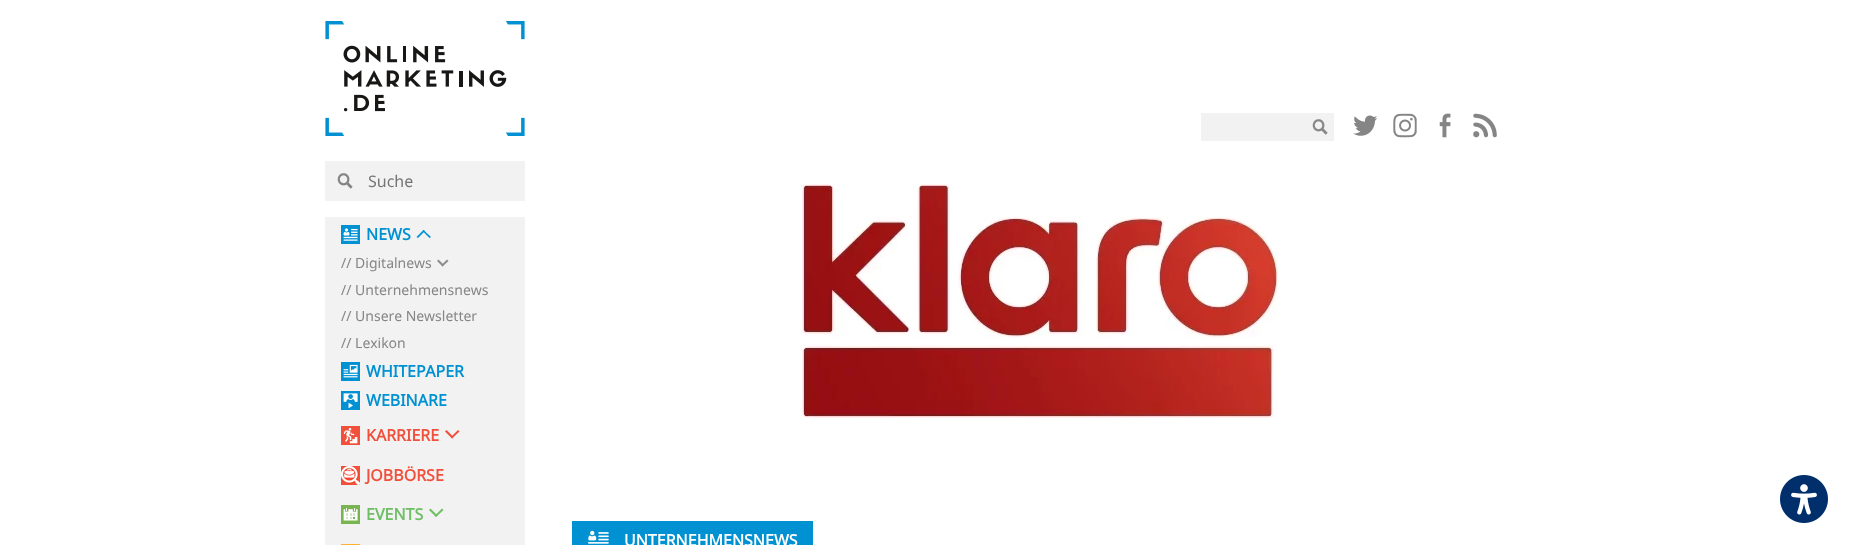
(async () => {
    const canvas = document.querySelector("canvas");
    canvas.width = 1850;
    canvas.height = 545;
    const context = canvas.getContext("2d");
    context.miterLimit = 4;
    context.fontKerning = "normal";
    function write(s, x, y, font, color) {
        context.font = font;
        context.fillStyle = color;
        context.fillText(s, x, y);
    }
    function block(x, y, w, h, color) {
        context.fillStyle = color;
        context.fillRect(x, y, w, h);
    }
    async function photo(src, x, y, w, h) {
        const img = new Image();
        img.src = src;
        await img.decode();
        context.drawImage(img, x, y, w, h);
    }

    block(0, 0, 1850, 545, "rgb(255, 255, 255)");
    await photo("media/1.png", 325, 21, 200, 115);
    block(1201, 113, 133, 28, "rgb(242, 242, 242)");
    await photo("media/4.png", 1314, 120, 12, 15);
    await photo("media/3.png", 1318, 119, 10, 15);
    await photo("media/2.png", 1312, 119, 16, 16);
    await photo("media/5.png", 1353, 115, 22, 21);
    await photo("media/6.png", 1353, 115, 24, 21);
    await photo("media/10.png", 1396, 115, 21, 21);
    await photo("media/9.png", 1395, 115, 22, 23);
    await photo("media/8.png", 1393, 115, 24, 23);
    await photo("media/7.png", 1393, 113, 24, 25);
    await photo("media/11.png", 1439, 113, 12, 25);
    await photo("media/15.png", 1478, 119, 13, 18);
    await photo("media/12.png", 1473, 113, 24, 25);
    await photo("media/13.png", 1473, 113, 24, 25);
    await photo("media/14.png", 1473, 113, 24, 25);
    block(325, 161, 200, 40, "rgb(242, 242, 242)");
    await photo("media/16.png", 337, 173, 16, 16);
    write("Suche", 368, 187, "16px Noto Sans", "rgb(117, 117, 117)");
    block(325, 217, 200, 328, "rgb(242, 242, 242)");
    await photo("media/17.png", 341, 225, 19, 19);
    write("NEWS", 366, 240, "bold 16px Noto Sans", "rgb(0, 145, 210)");
    context.beginPath();
    context.moveTo(416.5, 237);
    context.lineTo(423.5, 230);
    context.lineTo(425, 231);
    context.lineTo(418, 238);
    context.closePath();
    context.fill();
    context.beginPath();
    context.moveTo(422.5, 231);
    context.lineTo(423.5, 230);
    context.lineTo(431, 237);
    context.lineTo(429.5, 238);
    context.closePath();
    context.fill();
    write("// Digitalnews", 341, 268, "14px Noto Sans", "rgb(133, 133, 133)");
    context.fillStyle = "rgb(141, 141, 141)";
    context.beginPath();
    context.moveTo(448.5, 261);
    context.lineTo(442.5, 266.5);
    context.lineTo(441.5, 265);
    context.lineTo(447, 259.5);
    context.closePath();
    context.fill();
    context.beginPath();
    context.moveTo(444, 265);
    context.lineTo(442.5, 266.5);
    context.lineTo(437, 261);
    context.lineTo(438.5, 259.5);
    context.closePath();
    context.fill();
    write("// Unternehmensnews", 341, 295, "14px Noto Sans", "rgb(133, 133, 133)");
    write("// Unsere Newsletter", 341, 321, "14px Noto Sans", "rgb(133, 133, 133)");
    write("// Lexikon", 341, 348, "14px Noto Sans", "rgb(133, 133, 133)");
    await photo("media/18.png", 341, 362, 19, 19);
    write("WHITEPAPER", 366, 377, "bold 16px Noto Sans", "rgb(0, 145, 210)");
    await photo("media/19.png", 341, 391, 19, 19);
    write("WEBINARE", 366, 406, "bold 16px Noto Sans", "rgb(0, 145, 210)");
    await photo("media/20.png", 341, 426, 19, 19);
    write("KARRIERE", 366, 441, "bold 16px Noto Sans", "rgb(240, 80, 60)");
    context.beginPath();
    context.moveTo(459.5, 431.5);
    context.lineTo(452, 438.5);
    context.lineTo(451, 437);
    context.lineTo(458, 430);
    context.closePath();
    context.fill();
    context.beginPath();
    context.moveTo(453.5, 437);
    context.lineTo(452, 438.5);
    context.lineTo(445, 431.5);
    context.lineTo(446.5, 430);
    context.closePath();
    context.fill();
    await photo("media/21.png", 341, 466, 19, 19);
    write("JOBBÖRSE", 366, 481, "bold 16px Noto Sans", "rgb(240, 80, 60)");
    await photo("media/22.png", 341, 505, 19, 19);
    write("EVENTS", 366, 520, "bold 16px Noto Sans", "rgb(110, 190, 100)");
    context.beginPath();
    context.moveTo(443.5, 510);
    context.lineTo(436, 517);
    context.lineTo(435, 515.5);
    context.lineTo(442, 508.5);
    context.closePath();
    context.fill();
    context.beginPath();
    context.moveTo(437.5, 515.5);
    context.lineTo(436, 517);
    context.lineTo(429, 510);
    context.lineTo(430.5, 508.5);
    context.closePath();
    context.fill();
    block(341, 544, 19, 1, "rgb(255, 175, 50)");
    await photo("media/23.png", 801, 184, 477, 234);
    block(572, 521, 241, 24, "rgb(0, 145, 210)");
    await photo("media/24.png", 588, 530, 21, 14);
    write("UNTERNEHMENSNEWS", 624, 546, "bold 16px Noto Sans", "rgb(255, 255, 255)");
    await photo("media/25.png", 1780, 475, 48, 48);
})();
